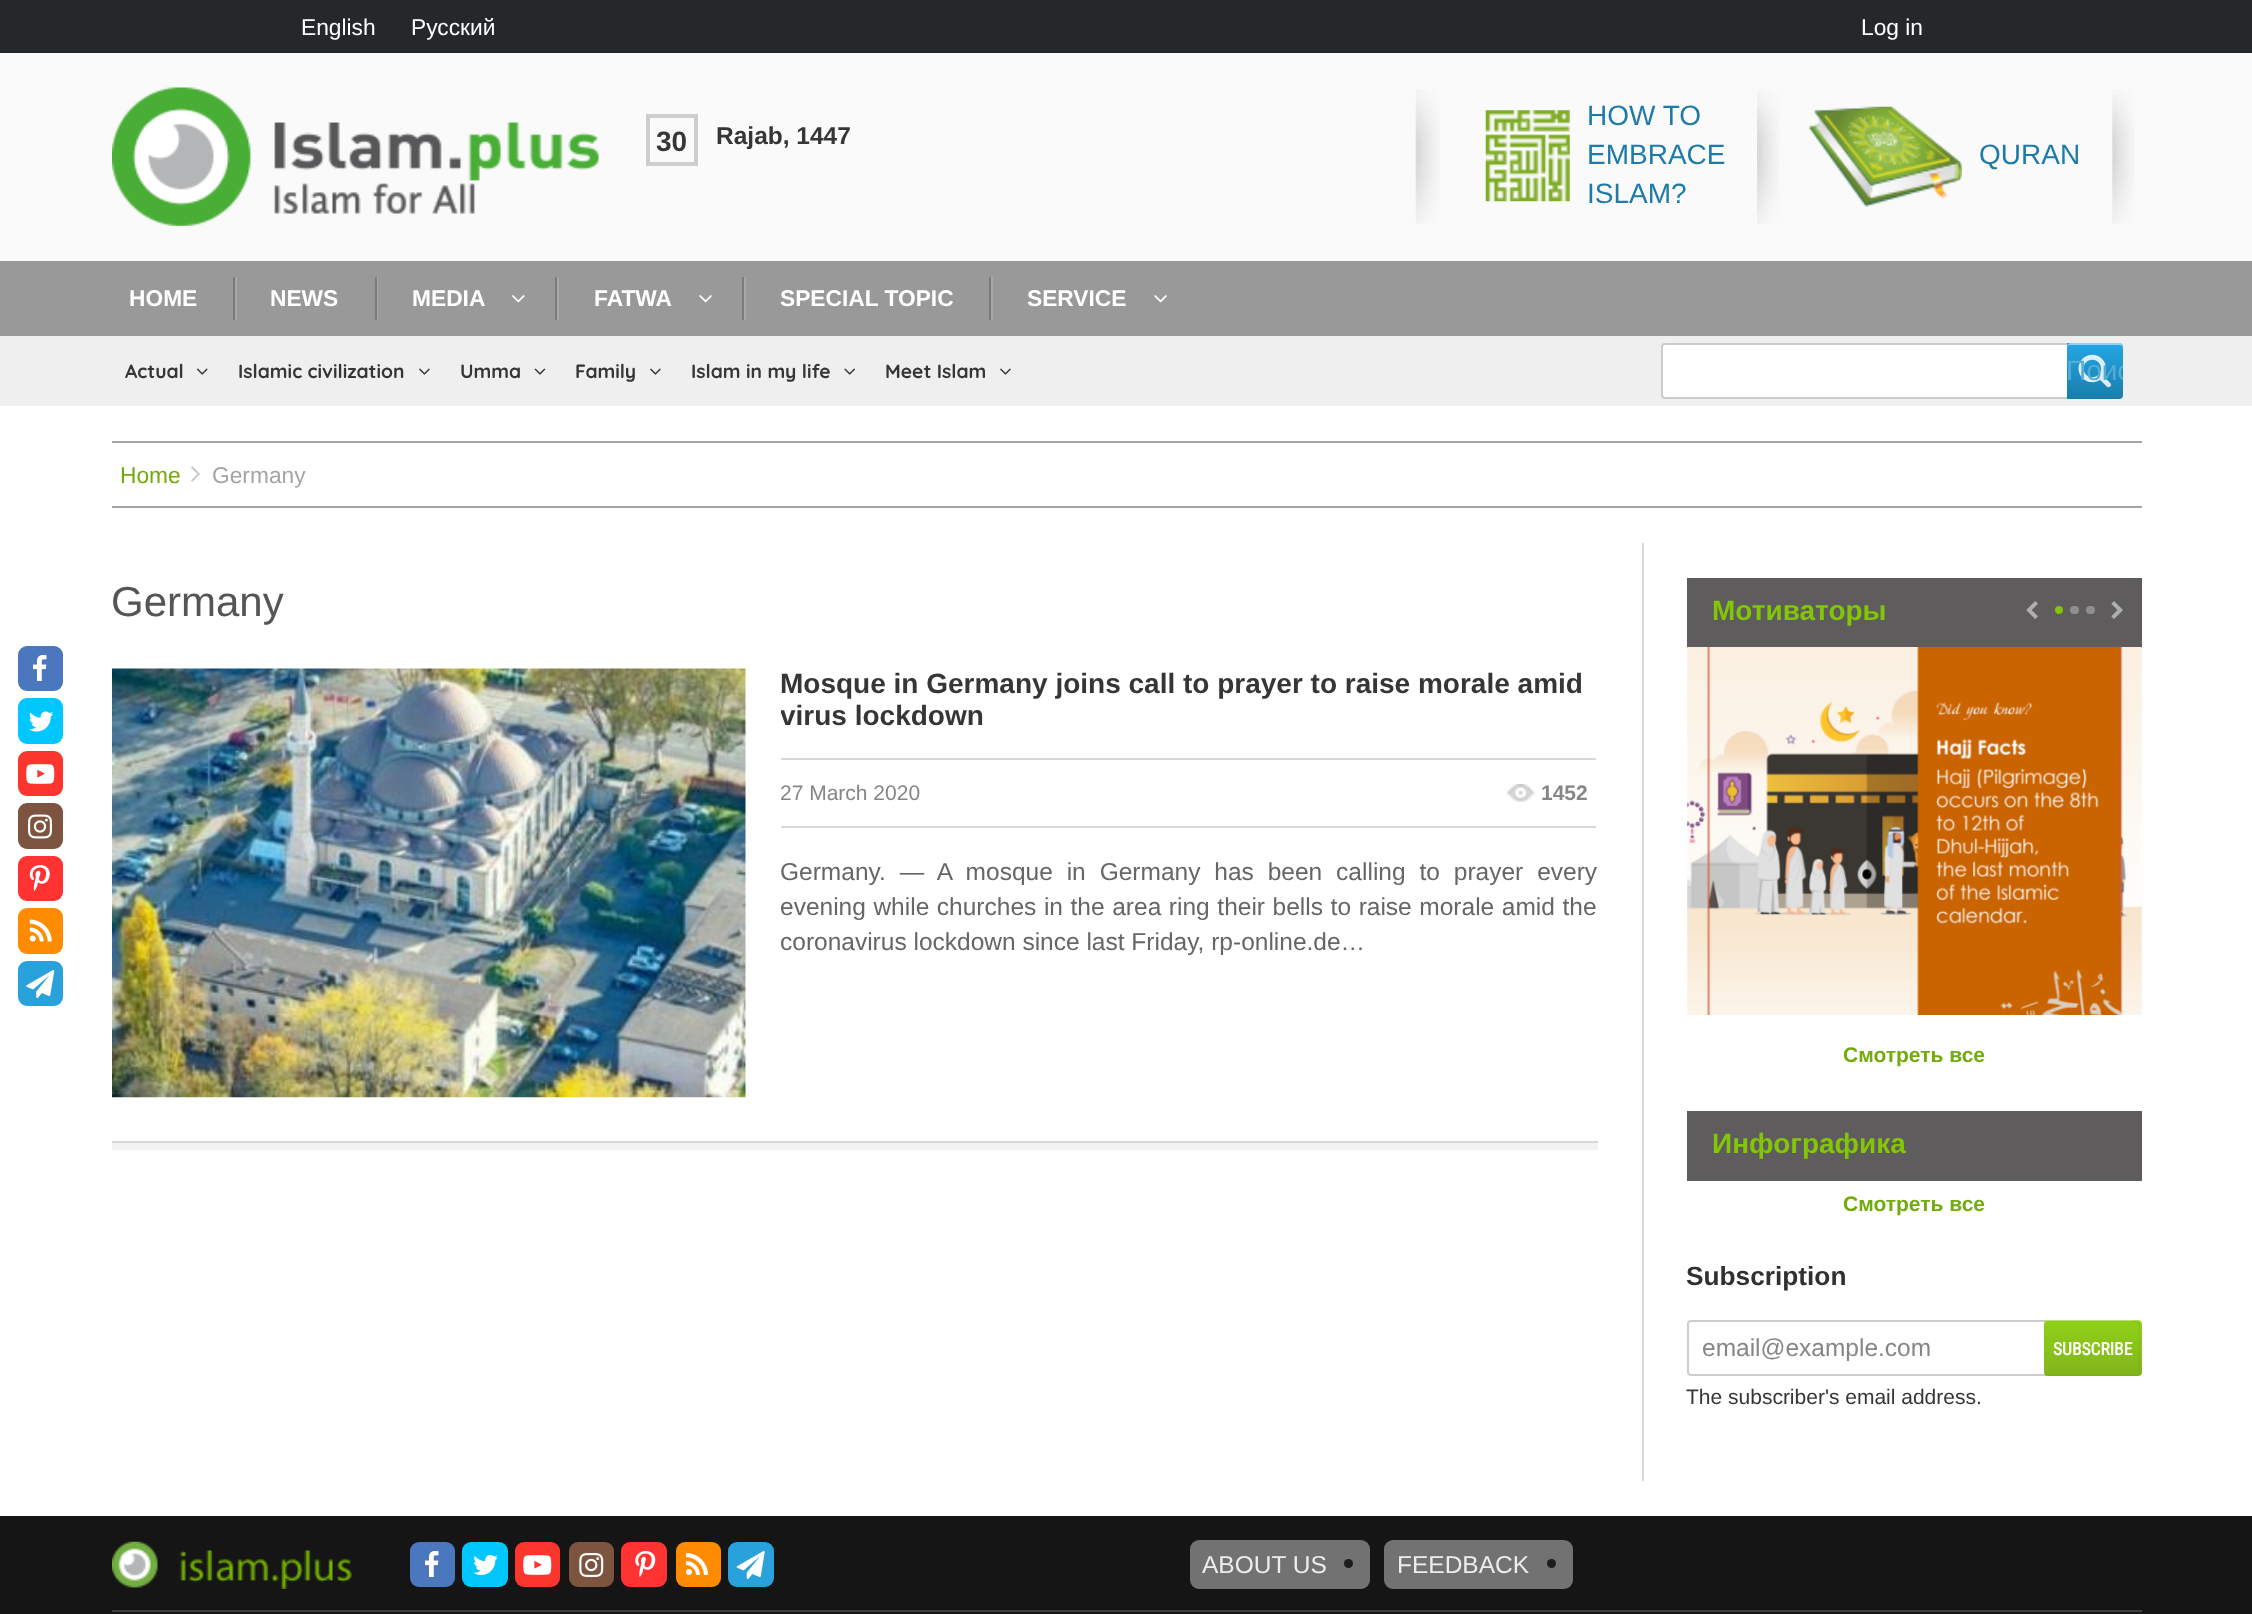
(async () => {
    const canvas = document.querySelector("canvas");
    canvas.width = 2252;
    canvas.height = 1614;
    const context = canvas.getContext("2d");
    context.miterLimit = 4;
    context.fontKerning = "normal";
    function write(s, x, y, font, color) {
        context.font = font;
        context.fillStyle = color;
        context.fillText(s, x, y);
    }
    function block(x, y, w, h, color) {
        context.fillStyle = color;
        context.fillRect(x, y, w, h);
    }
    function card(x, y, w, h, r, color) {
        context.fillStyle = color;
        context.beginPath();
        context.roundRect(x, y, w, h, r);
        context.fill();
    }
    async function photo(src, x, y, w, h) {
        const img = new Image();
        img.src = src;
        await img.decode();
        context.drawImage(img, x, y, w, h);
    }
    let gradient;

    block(0, 0, 2252, 1614, "rgb(255, 255, 255)");
    block(0, 0, 2252, 53, "rgb(36, 40, 43)");
    write("English", 301, 35, "22.75px Liberation Sans", "rgb(255, 255, 255)");
    write("Русский", 411, 35, "22.75px Liberation Sans", "rgb(255, 255, 255)");
    write("Log in", 1861, 35, "22.75px Liberation Sans", "rgb(255, 255, 255)");
    block(0, 53, 2252, 208, "rgb(250, 250, 250)");
    await photo("media/1.png", 112, 87, 487, 139);
    context.strokeStyle = "rgb(206, 206, 206)";
    context.lineWidth = 4;
    context.strokeRect(648, 116, 48, 48);
    write("30", 656, 151, "bold 28px Liberation Sans", "rgb(54, 54, 54)");
    write("Rajab, 1447", 716, 144, "bold 24.5px Liberation Sans", "rgb(54, 54, 54)");
    await photo("media/2.png", 1415, 89, 25, 135);
    await photo("media/3.png", 1757, 89, 23, 135);
    await photo("media/4.png", 1485, 110, 85, 92);
    write("HOW TO", 1587, 125, "28px Liberation Sans", "rgb(30, 122, 168)");
    write("EMBRACE", 1587, 164, "28px Liberation Sans", "rgb(30, 122, 168)");
    write("ISLAM?", 1587, 203, "28px Liberation Sans", "rgb(30, 122, 168)");
    await photo("media/5.png", 2112, 89, 23, 135);
    await photo("media/6.png", 1809, 106, 153, 101);
    write("QURAN", 1979, 164, "28px Liberation Sans", "rgb(30, 122, 168)");
    block(0, 261, 2252, 75, "rgb(153, 153, 153)");
    write("HOME", 129, 306, "bold 22.75px Liberation Sans", "rgb(255, 255, 255)");
    block(235, 277, 2, 43, "rgb(167, 167, 167)");
    block(233, 277, 2, 43, "rgb(123, 123, 123)");
    write("NEWS", 270, 306, "bold 22.75px Liberation Sans", "rgb(255, 255, 255)");
    block(377, 277, 1, 43, "rgb(167, 167, 167)");
    block(375, 277, 2, 43, "rgb(123, 123, 123)");
    write("MEDIA", 412, 306, "bold 22.75px Liberation Sans", "rgb(255, 255, 255)");
    await photo("media/7.png", 512, 295, 13, 8);
    block(557, 277, 2, 43, "rgb(167, 167, 167)");
    block(555, 277, 2, 43, "rgb(123, 123, 123)");
    write("FATWA", 594, 306, "bold 22.75px Liberation Sans", "rgb(255, 255, 255)");
    await photo("media/8.png", 699, 295, 13, 8);
    block(744, 277, 2, 43, "rgb(167, 167, 167)");
    block(742, 277, 2, 43, "rgb(123, 123, 123)");
    write("SPECIAL TOPIC", 780, 306, "bold 22.75px Liberation Sans", "rgb(255, 255, 255)");
    block(991, 277, 2, 43, "rgb(167, 167, 167)");
    block(989, 277, 2, 43, "rgb(123, 123, 123)");
    write("SERVICE", 1027, 306, "bold 22.75px Liberation Sans", "rgb(255, 255, 255)");
    await photo("media/8.png", 1154, 295, 13, 8);
    block(0, 336, 2252, 70, "rgb(239, 239, 239)");
    write("Actual", 125, 378, "bold 19.25px Quicksand", "rgb(54, 54, 54)");
    await photo("media/9.png", 196, 368, 12, 7);
    write("Islamic civilization", 238, 378, "bold 19.25px Quicksand", "rgb(54, 54, 54)");
    await photo("media/10.png", 419, 368, 11, 7);
    write("Umma", 460, 378, "bold 19.25px Quicksand", "rgb(54, 54, 54)");
    await photo("media/11.png", 534, 368, 12, 7);
    write("Family", 575, 378, "bold 19.25px Quicksand", "rgb(54, 54, 54)");
    await photo("media/10.png", 650, 368, 11, 7);
    write("Islam in my life", 691, 378, "bold 19.25px Quicksand", "rgb(54, 54, 54)");
    await photo("media/12.png", 844, 368, 11, 7);
    write("Meet Islam", 885, 378, "bold 19.25px Quicksand", "rgb(54, 54, 54)");
    await photo("media/10.png", 1000, 368, 11, 7);
    context.fillStyle = "rgb(255, 255, 255)";
    context.beginPath();
    context.roundRect(1662, 344, 456, 54, 3);
    context.fill();
    context.strokeStyle = "rgb(204, 204, 204)";
    context.lineWidth = 2;
    context.stroke();
    gradient = context.createLinearGradient(2095, 343, 2095, 399);
    gradient.addColorStop(0, "rgb(36, 167, 230)");
    gradient.addColorStop(1, "rgb(24, 125, 171)");
    context.fillStyle = gradient;
    context.beginPath();
    context.roundRect(2067, 343, 56, 56, [0, 4, 4, 0]);
    context.fill();
    await photo("media/13.png", 2078, 354, 33, 34);
    context.fillStyle = "rgba(255, 255, 255, 0.5)";
    context.beginPath();
    context.moveTo(2070, 345);
    context.lineTo(2119, 345);
    context.bezierCurveTo(2121, 345, 2123, 346, 2123, 348);
    context.bezierCurveTo(2123, 341, 2116, 343, 2111, 343);
    context.lineTo(2079, 343);
    context.bezierCurveTo(2074, 343, 2067, 341, 2067, 348);
    context.bezierCurveTo(2067, 346, 2068, 345, 2070, 345);
    context.closePath();
    context.fill();
    context.save();
    context.beginPath();
    context.roundRect(2067, 343, 56, 56, 4);
    context.clip();
    write("Поис", 2066, 380, "28px Liberation Sans", "rgb(85, 173, 214)");
    context.restore();
    block(112, 441, 2030, 2, "rgb(165, 165, 165)");
    block(112, 506, 2030, 2, "rgb(165, 165, 165)");
    write("Home", 120, 483, "22.75px Liberation Sans", "rgb(114, 171, 11)");
    await photo("media/14.png", 191, 466, 9, 16);
    write("Germany", 212, 483, "22.75px Liberation Sans", "rgb(165, 165, 165)");
    card(18, 646, 45, 45, 9, "rgb(74, 119, 190)");
    await photo("media/15.png", 33, 655, 14, 26);
    card(18, 698, 45, 46, 9, "rgb(0, 199, 255)");
    await photo("media/16.png", 29, 711, 25, 21);
    card(18, 751, 45, 45, 9, "rgb(252, 53, 45)");
    await photo("media/17.png", 26, 764, 29, 20);
    card(18, 803, 45, 46, 9, "rgb(124, 84, 63)");
    await photo("media/18.png", 28, 814, 24, 25);
    card(18, 856, 45, 45, 9, "rgb(255, 51, 50)");
    await photo("media/19.png", 29, 865, 21, 26);
    card(18, 908, 45, 46, 9, "rgb(255, 139, 0)");
    await photo("media/20.png", 29, 919, 23, 23);
    card(18, 961, 45, 45, 9, "rgb(41, 162, 219)");
    await photo("media/21.png", 26, 970, 29, 28);
    block(1642, 543, 2, 938, "rgb(216, 216, 216)");
    write("Germany", 111, 616, "42px Liberation Sans", "rgb(85, 85, 85)");
    context.fillStyle = "rgb(242, 242, 242)";
    context.beginPath();
    context.moveTo(112, 1143);
    context.lineTo(112, 1150);
    context.lineTo(1598, 1150);
    context.lineTo(1598, 667);
    context.lineTo(1598, 1143);
    context.closePath();
    context.fill();
    block(112, 1141, 1486, 2, "rgb(216, 216, 216)");
    await photo("media/22.png", 112, 668, 634, 430);
    write("Mosque in Germany joins call to prayer to raise morale amid", 780, 693, "bold 28px Liberation Sans", "rgb(54, 54, 54)");
    context.save();
    context.beginPath();
    context.rect(781, 669, 815, 63);
    context.clip();
    write("virus lockdown", 780, 725, "bold 28px Liberation Sans", "rgb(54, 54, 54)");
    context.restore();
    block(781, 758, 815, 2, "rgb(216, 216, 216)");
    block(781, 826, 815, 2, "rgb(216, 216, 216)");
    write("27 March 2020", 780, 800, "21px Liberation Sans", "rgb(134, 134, 134)");
    await photo("media/23.png", 1506, 784, 29, 18);
    write("1452", 1541, 800, "bold 21px Liberation Sans", "rgb(134, 134, 134)");
    context.wordSpacing = "7.1px";
    write("Germany. — A mosque in Germany has been calling to prayer every", 780, 880, "24.5px Liberation Sans", "rgb(102, 102, 102)");
    context.wordSpacing = "0.8px";
    write("evening while churches in the area ring their bells to raise morale amid the", 780, 915, "24.5px Liberation Sans", "rgb(102, 102, 102)");
    context.wordSpacing = "0px";
    write("coronavirus lockdown since last Friday, rp-online.de…", 780, 950, "24.5px Liberation Sans", "rgb(102, 102, 102)");
    block(1687, 578, 455, 70, "rgb(94, 92, 92)");
    write("Мотиваторы", 1712, 620, "bold 28px Liberation Sans", "rgb(130, 198, 7)");
    await photo("media/24.png", 2026, 601, 12, 18);
    await photo("media/25.png", 2111, 601, 12, 18);
    context.beginPath();
    context.arc(2059, 610, 4, 0, Math.PI * 2);
    context.fill();
    card(2070, 606, 9, 8, 4, "rgb(143, 142, 142)");
    card(2086, 606, 9, 8, 4, "rgb(143, 142, 142)");
    await photo("media/26.png", 1687, 647, 455, 368);
    write("Смотреть все", 1843, 1062, "bold 21px Liberation Sans", "rgb(114, 171, 11)");
    block(1687, 1111, 455, 70, "rgb(94, 92, 92)");
    write("Инфографика", 1712, 1153, "bold 28px Liberation Sans", "rgb(130, 198, 7)");
    write("Смотреть все", 1843, 1211, "bold 21px Liberation Sans", "rgb(114, 171, 11)");
    write("Subscription", 1686, 1285, "bold 26.25px Liberation Sans", "rgb(48, 48, 48)");
    context.beginPath();
    context.roundRect(1688, 1321, 451, 54, 3);
    context.stroke();
    write("email@example.com", 1702, 1356, "24.5px Liberation Sans", "rgb(134, 134, 134)");
    write("The subscriber's email address.", 1686, 1404, "21px Liberation Sans", "rgb(54, 54, 54)");
    gradient = context.createLinearGradient(2093, 1320, 2093, 1376);
    gradient.addColorStop(0, "rgba(132, 203, 0, 0.9)");
    gradient.addColorStop(1, "rgba(115, 173, 3, 0.9)");
    context.fillStyle = gradient;
    context.beginPath();
    context.roundRect(2044, 1320, 98, 56, 4);
    context.fill();
    context.fillStyle = "rgba(255, 255, 255, 0.45)";
    context.beginPath();
    context.moveTo(2048, 1321);
    context.lineTo(2130, 1321);
    context.bezierCurveTo(2143, 1320, 2142, 1321, 2142, 1333);
    context.lineTo(2142, 1324);
    context.bezierCurveTo(2142, 1322, 2140, 1320, 2138, 1320);
    context.lineTo(2048, 1320);
    context.bezierCurveTo(2046, 1320, 2044, 1322, 2044, 1324);
    context.lineTo(2045, 1322);
    context.closePath();
    context.fill();
    write("SUBSCRIBE", 2053, 1355, "bold 17.5px Roboto Condensed", "rgb(255, 255, 255)");
    block(0, 1516, 2252, 98, "rgb(21, 21, 21)");
    block(112, 1610, 2030, 2, "rgb(62, 62, 62)");
    await photo("media/27.png", 112, 1541, 240, 48);
    card(410, 1542, 45, 45, 9, "rgb(74, 119, 190)");
    await photo("media/15.png", 425, 1551, 14, 26);
    card(462, 1542, 46, 45, 9, "rgb(0, 199, 255)");
    await photo("media/28.png", 473, 1555, 25, 20);
    card(515, 1542, 45, 45, 9, "rgb(252, 53, 45)");
    await photo("media/17.png", 523, 1555, 29, 20);
    card(569, 1542, 45, 45, 9, "rgb(124, 84, 63)");
    await photo("media/29.png", 579, 1553, 25, 24);
    card(621, 1542, 46, 45, 9, "rgb(255, 51, 50)");
    await photo("media/30.png", 635, 1551, 21, 26);
    card(676, 1542, 45, 45, 9, "rgb(255, 139, 0)");
    await photo("media/31.png", 686, 1553, 22, 22);
    card(728, 1542, 46, 45, 9, "rgb(41, 162, 219)");
    await photo("media/32.png", 736, 1551, 29, 28);
    card(1190, 1540, 180, 49, 9, "rgb(114, 114, 114)");
    write("ABOUT US", 1202, 1573, "24.5px Liberation Sans", "rgb(237, 237, 237)");
    context.fillStyle = "rgb(28, 28, 28)";
    context.beginPath();
    context.arc(1348.5, 1563.5, 4.5, 0, Math.PI * 2);
    context.fill();
    card(1384, 1540, 189, 49, 9, "rgb(114, 114, 114)");
    write("FEEDBACK", 1397, 1573, "24.5px Liberation Sans", "rgb(237, 237, 237)");
    context.fillStyle = "rgb(28, 28, 28)";
    context.beginPath();
    context.arc(1551.5, 1563.5, 4.5, 0, Math.PI * 2);
    context.fill();
})();
